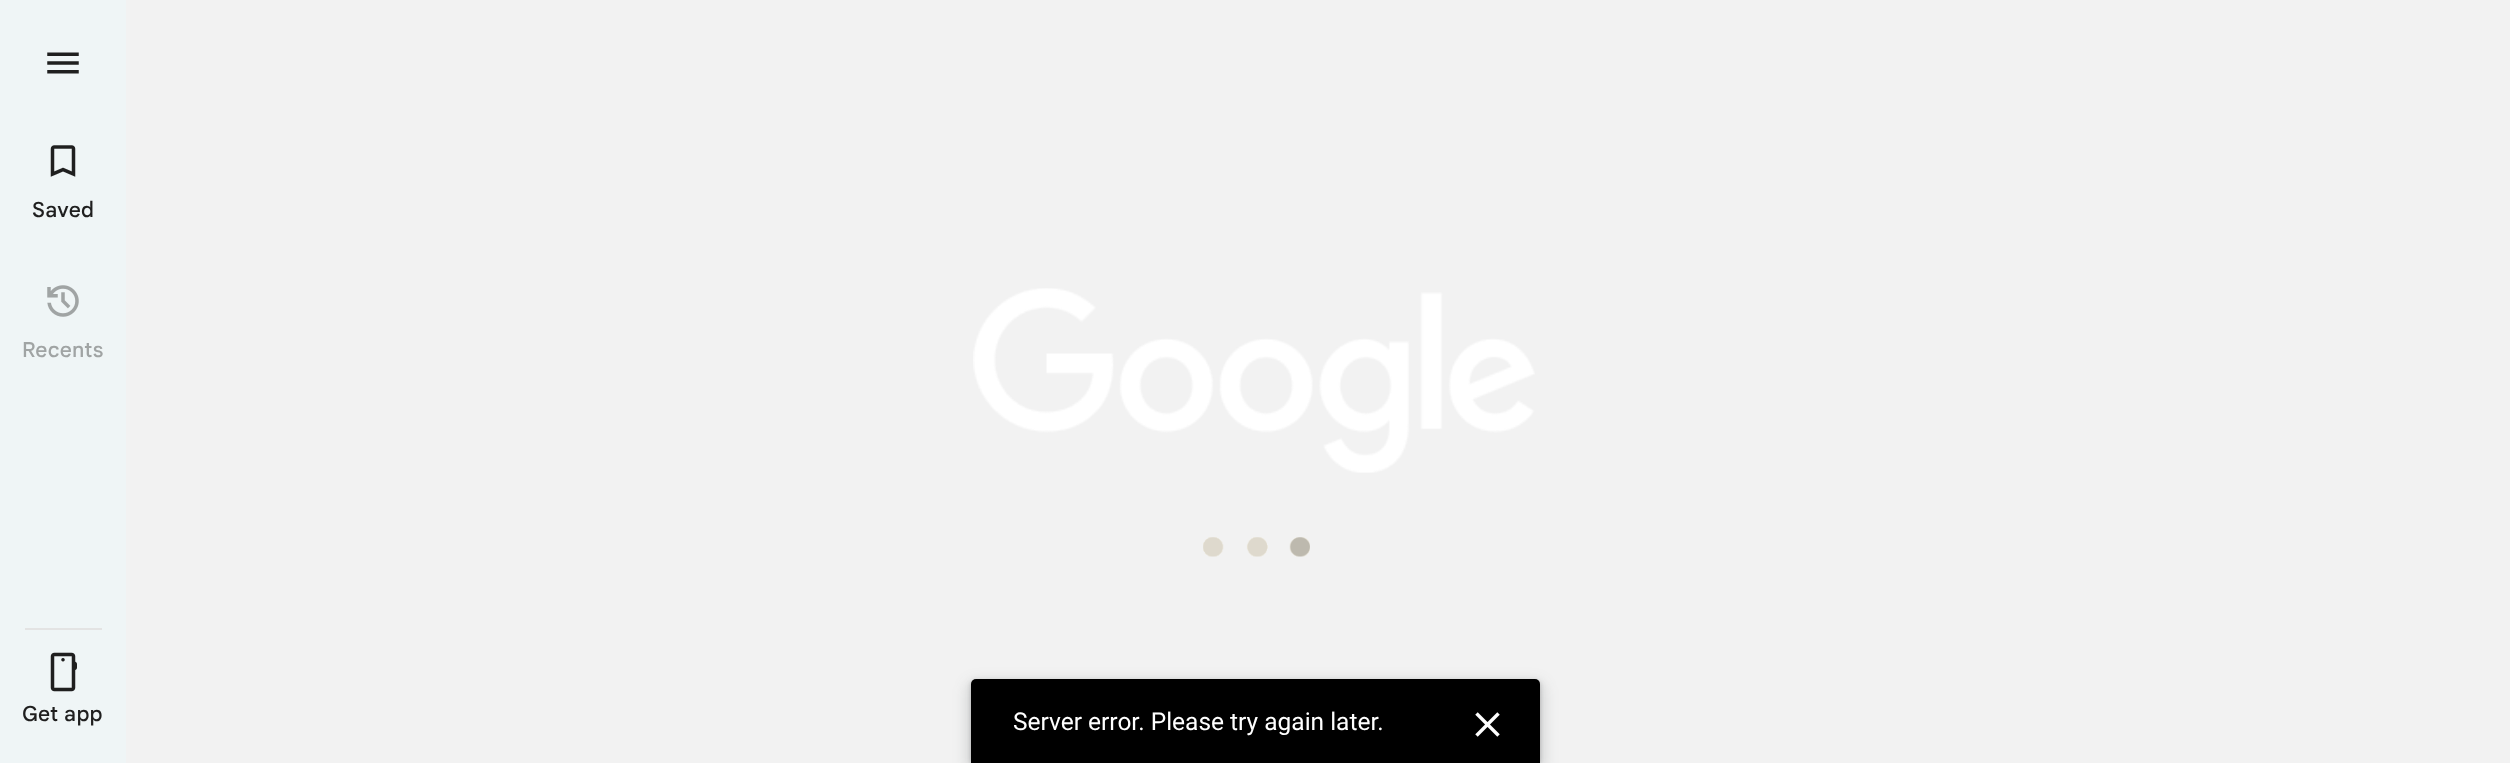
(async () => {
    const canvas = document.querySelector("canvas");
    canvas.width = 2510;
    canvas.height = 763;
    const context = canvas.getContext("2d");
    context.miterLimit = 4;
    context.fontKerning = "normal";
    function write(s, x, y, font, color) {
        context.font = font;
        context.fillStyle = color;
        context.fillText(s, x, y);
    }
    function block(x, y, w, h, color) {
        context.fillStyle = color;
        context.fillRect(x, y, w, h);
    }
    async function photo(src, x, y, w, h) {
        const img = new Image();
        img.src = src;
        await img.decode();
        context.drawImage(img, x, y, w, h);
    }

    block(0, 0, 2510, 763, "rgb(242, 242, 242)");
    block(0, 0, 126, 763, "rgb(239, 245, 246)");
    await photo("media/1.png", 47, 52, 32, 22);
    await photo("media/2.png", 50, 145, 26, 32);
    context.letterSpacing = "0.25px";
    write("Saved", 32, 217, "500 21px Google Sans", "rgb(31, 31, 31)");
    await photo("media/3.png", 47, 285, 32, 32);
    write("Recents", 22, 357, "500 21px Google Sans", "rgb(160, 164, 164)");
    block(25, 628, 77, 2, "rgb(227, 227, 227)");
    await photo("media/4.png", 50, 652, 27, 40);
    write("Get app", 22, 721, "500 21px Google Sans", "rgb(31, 31, 31)");
    await photo("media/5.png", 973, 288, 562, 185);
    await photo("media/6.png", 1203, 537, 107, 20);
    context.fillStyle = "rgba(60, 64, 67, 0.15)";
    context.filter = "blur(7px)";
    context.beginPath();
    context.roundRect(966, 681, 579, 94, 11);
    context.fill();
    context.filter = "none";
    context.fillStyle = "rgba(60, 64, 67, 0.3)";
    context.filter = "blur(2.5px)";
    context.beginPath();
    context.roundRect(971, 681, 569, 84, 5);
    context.fill();
    context.filter = "none";
    context.fillStyle = "rgb(0, 0, 0)";
    context.beginPath();
    context.roundRect(971, 679, 569, 84, [5, 5, 0, 0]);
    context.fill();
    context.letterSpacing = "0px";
    write("Server error. Please try again later.", 1013, 730, "24.5px Roboto", "rgb(255, 255, 255)");
    await photo("media/7.png", 1475, 712, 25, 25);
})();
